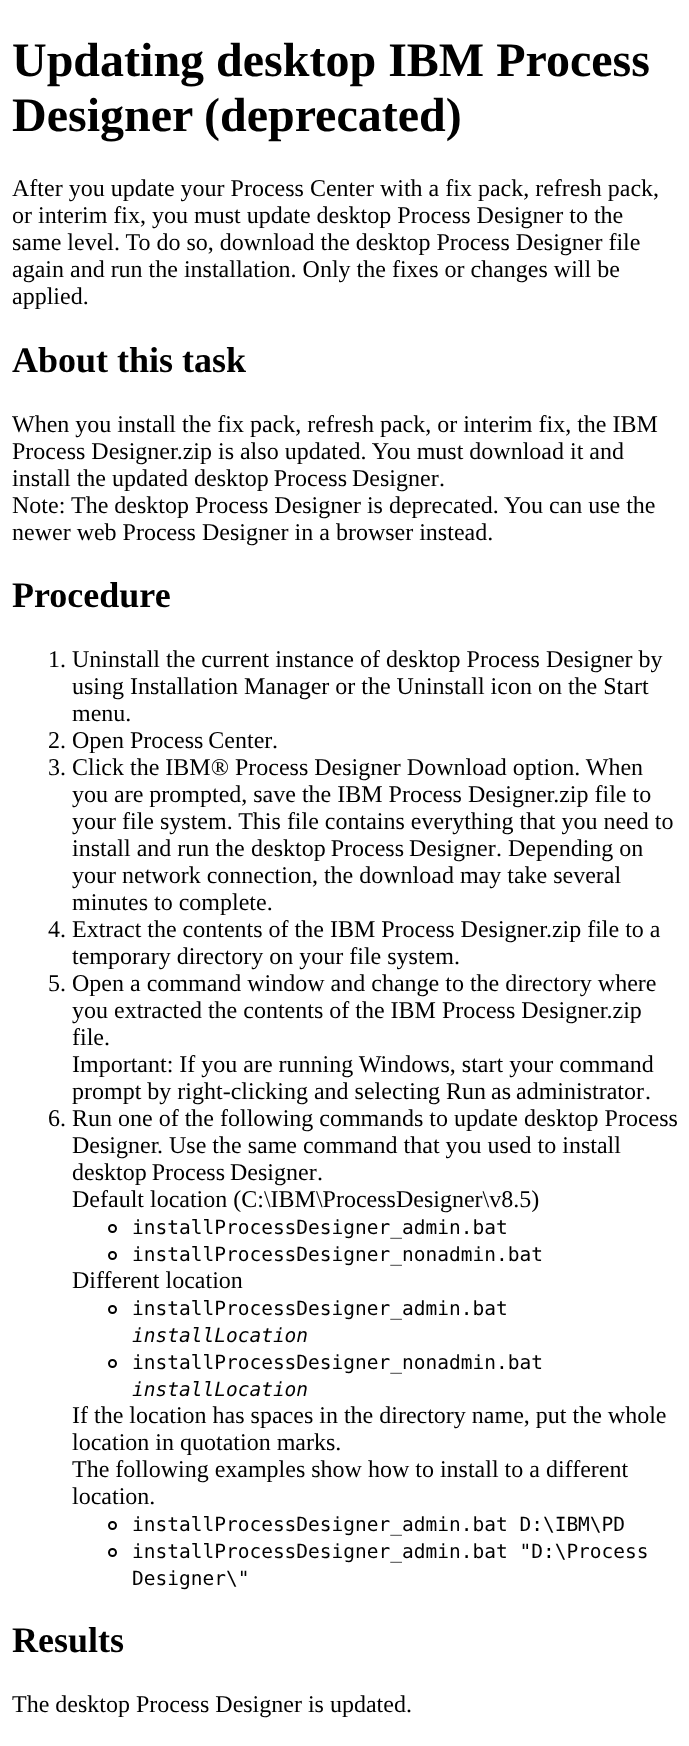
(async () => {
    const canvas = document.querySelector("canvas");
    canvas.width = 689;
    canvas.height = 1746;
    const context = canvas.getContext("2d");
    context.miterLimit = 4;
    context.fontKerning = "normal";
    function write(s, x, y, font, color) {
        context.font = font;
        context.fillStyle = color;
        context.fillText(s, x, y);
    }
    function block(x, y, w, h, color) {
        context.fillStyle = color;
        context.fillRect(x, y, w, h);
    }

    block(0, 0, 689, 1746, "rgb(255, 255, 255)");
    write("Updating desktop IBM Process", 12, 76, "bold 48px Liberation Serif", "rgb(0, 0, 0)");
    write("Designer", 12, 131, "bold 48px Liberation Serif", "rgb(0, 0, 0)");
    write("(deprecated)", 204, 131, "bold 48px Liberation Serif", "rgb(0, 0, 0)");
    write("After you update your Process Center with a fix pack, refresh pack,", 12, 196, "24px Liberation Serif", "rgb(0, 0, 0)");
    write("or interim fix, you must update desktop Process Designer to the", 12, 223, "24px Liberation Serif", "rgb(0, 0, 0)");
    write("same level. To do so, download the desktop Process Designer file", 12, 250, "24px Liberation Serif", "rgb(0, 0, 0)");
    write("again and run the installation. Only the fixes or changes will be", 12, 277, "24px Liberation Serif", "rgb(0, 0, 0)");
    write("applied.", 12, 304, "24px Liberation Serif", "rgb(0, 0, 0)");
    write("About this task", 12, 372, "bold 36px Liberation Serif", "rgb(0, 0, 0)");
    write("When you install the fix pack, refresh pack, or interim fix, the IBM", 12, 432, "24px Liberation Serif", "rgb(0, 0, 0)");
    write("Process Designer.zip is also updated. You must download it and", 12, 459, "24px Liberation Serif", "rgb(0, 0, 0)");
    write("install the updated", 12, 486, "24px Liberation Serif", "rgb(0, 0, 0)");
    context.wordSpacing = "-1px";
    write("desktop Process Designer", 194, 486, "24px Liberation Serif", "rgb(0, 0, 0)");
    context.wordSpacing = "0px";
    write(".", 439, 486, "24px Liberation Serif", "rgb(0, 0, 0)");
    write("Note:", 12, 513, "24px Liberation Serif", "rgb(0, 0, 0)");
    write("The desktop Process Designer is deprecated. You can use the", 71, 513, "24px Liberation Serif", "rgb(0, 0, 0)");
    write("newer web Process Designer in a browser instead.", 12, 540, "24px Liberation Serif", "rgb(0, 0, 0)");
    write("Procedure", 12, 607, "bold 36px Liberation Serif", "rgb(0, 0, 0)");
    write("1. Uninstall the current instance of desktop Process Designer by", 48, 667, "24px Liberation Serif", "rgb(0, 0, 0)");
    write("using Installation Manager or the Uninstall icon on the Start", 72, 694, "24px Liberation Serif", "rgb(0, 0, 0)");
    write("menu.", 72, 721, "24px Liberation Serif", "rgb(0, 0, 0)");
    write("2. Open", 48, 748, "24px Liberation Serif", "rgb(0, 0, 0)");
    context.wordSpacing = "-1px";
    write("Process Center", 130, 748, "24px Liberation Serif", "rgb(0, 0, 0)");
    context.wordSpacing = "0px";
    write(".", 272, 748, "24px Liberation Serif", "rgb(0, 0, 0)");
    write("3. Click the IBM® Process Designer Download option. When", 48, 775, "24px Liberation Serif", "rgb(0, 0, 0)");
    write("you are prompted, save the IBM Process Designer.zip file to", 72, 802, "24px Liberation Serif", "rgb(0, 0, 0)");
    write("your file system. This file contains everything that you need to", 72, 829, "24px Liberation Serif", "rgb(0, 0, 0)");
    write("install and run the", 72, 856, "24px Liberation Serif", "rgb(0, 0, 0)");
    context.wordSpacing = "-1px";
    write("desktop Process Designer", 251, 856, "24px Liberation Serif", "rgb(0, 0, 0)");
    context.wordSpacing = "0px";
    write(". Depending on", 496, 856, "24px Liberation Serif", "rgb(0, 0, 0)");
    write("your network connection, the download may take several", 72, 883, "24px Liberation Serif", "rgb(0, 0, 0)");
    write("minutes to complete.", 72, 910, "24px Liberation Serif", "rgb(0, 0, 0)");
    write("4. Extract the contents of the IBM Process Designer.zip file to a", 48, 937, "24px Liberation Serif", "rgb(0, 0, 0)");
    write("temporary directory on your file system.", 72, 964, "24px Liberation Serif", "rgb(0, 0, 0)");
    write("5. Open a command window and change to the directory where", 48, 991, "24px Liberation Serif", "rgb(0, 0, 0)");
    write("you extracted the contents of the IBM Process Designer.zip", 72, 1018, "24px Liberation Serif", "rgb(0, 0, 0)");
    write("file.", 72, 1045, "24px Liberation Serif", "rgb(0, 0, 0)");
    write("Important: If you are running Windows, start your command", 72, 1072, "24px Liberation Serif", "rgb(0, 0, 0)");
    write("prompt by right-clicking and selecting", 72, 1099, "24px Liberation Serif", "rgb(0, 0, 0)");
    context.wordSpacing = "-1px";
    write("Run as administrator", 446, 1099, "24px Liberation Serif", "rgb(0, 0, 0)");
    context.wordSpacing = "0px";
    write(".", 645, 1099, "24px Liberation Serif", "rgb(0, 0, 0)");
    write("6. Run one of the following commands to update desktop Process", 48, 1126, "24px Liberation Serif", "rgb(0, 0, 0)");
    write("Designer", 72, 1153, "24px Liberation Serif", "rgb(0, 0, 0)");
    write(". Use the same command that you used to install", 157, 1153, "24px Liberation Serif", "rgb(0, 0, 0)");
    context.wordSpacing = "-1px";
    write("desktop Process Designer", 72, 1180, "24px Liberation Serif", "rgb(0, 0, 0)");
    context.wordSpacing = "0px";
    write(".", 317, 1180, "24px Liberation Serif", "rgb(0, 0, 0)");
    write("Default location (C:\\IBM\\ProcessDesigner\\v8.5)", 72, 1207, "24px Liberation Serif", "rgb(0, 0, 0)");
    context.beginPath();
    context.arc(112.5, 1228.5, 3.5, 0, Math.PI * 2);
    context.strokeStyle = "rgb(0, 0, 0)";
    context.lineWidth = 2;
    context.stroke();
    write("installProcessDesigner_admin.bat", 132, 1234, "19.5px DejaVu Sans Mono", "rgb(0, 0, 0)");
    context.beginPath();
    context.arc(112.5, 1255.5, 3.5, 0, Math.PI * 2);
    context.stroke();
    write("installProcessDesigner_nonadmin.bat", 132, 1261, "19.5px DejaVu Sans Mono", "rgb(0, 0, 0)");
    write("Different location", 72, 1288, "24px Liberation Serif", "rgb(0, 0, 0)");
    context.beginPath();
    context.arc(112.5, 1309.5, 3.5, 0, Math.PI * 2);
    context.stroke();
    write("installProcessDesigner_admin.bat", 132, 1315, "19.5px DejaVu Sans Mono", "rgb(0, 0, 0)");
    write("installLocation", 132, 1342, "italic 19.5px DejaVu Sans Mono", "rgb(0, 0, 0)");
    context.beginPath();
    context.arc(112.5, 1363.5, 3.5, 0, Math.PI * 2);
    context.stroke();
    write("installProcessDesigner_nonadmin.bat", 132, 1369, "19.5px DejaVu Sans Mono", "rgb(0, 0, 0)");
    write("installLocation", 132, 1396, "italic 19.5px DejaVu Sans Mono", "rgb(0, 0, 0)");
    write("If the location has spaces in the directory name, put the whole", 72, 1423, "24px Liberation Serif", "rgb(0, 0, 0)");
    write("location in quotation marks.", 72, 1450, "24px Liberation Serif", "rgb(0, 0, 0)");
    write("The following examples show how to install to a different", 72, 1477, "24px Liberation Serif", "rgb(0, 0, 0)");
    write("location.", 72, 1504, "24px Liberation Serif", "rgb(0, 0, 0)");
    context.beginPath();
    context.arc(112.5, 1525.5, 3.5, 0, Math.PI * 2);
    context.stroke();
    write("installProcessDesigner_admin.bat D:\\IBM\\PD", 132, 1531, "19.5px DejaVu Sans Mono", "rgb(0, 0, 0)");
    context.beginPath();
    context.arc(112.5, 1552.5, 3.5, 0, Math.PI * 2);
    context.stroke();
    write("installProcessDesigner_admin.bat \"D:\\Process", 132, 1558, "19.5px DejaVu Sans Mono", "rgb(0, 0, 0)");
    write("Designer\\\"", 132, 1585, "19.5px DejaVu Sans Mono", "rgb(0, 0, 0)");
    write("Results", 12, 1652, "bold 36px Liberation Serif", "rgb(0, 0, 0)");
    write("The desktop Process Designer is updated.", 12, 1712, "24px Liberation Serif", "rgb(0, 0, 0)");
})();
